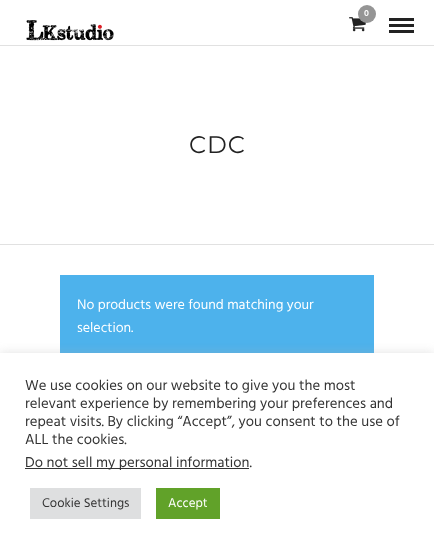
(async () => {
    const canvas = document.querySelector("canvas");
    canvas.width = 434;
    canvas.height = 549;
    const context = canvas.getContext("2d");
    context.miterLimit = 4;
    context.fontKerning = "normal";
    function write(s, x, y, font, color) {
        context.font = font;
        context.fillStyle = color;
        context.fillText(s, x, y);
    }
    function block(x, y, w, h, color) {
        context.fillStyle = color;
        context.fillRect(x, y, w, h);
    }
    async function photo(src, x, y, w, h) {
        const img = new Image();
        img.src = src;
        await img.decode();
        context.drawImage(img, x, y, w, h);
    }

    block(0, 0, 434, 549, "rgb(255, 255, 255)");
    block(0, 45, 434, 1, "rgb(225, 225, 225)");
    await photo("media/1.png", 349, 17, 17, 15);
    context.fillStyle = "rgb(149, 149, 149)";
    context.beginPath();
    context.arc(367, 14, 9, 0, Math.PI * 2);
    context.fill();
    write("0", 364, 16, "600 9px Hind", "rgb(255, 255, 255)");
    block(389, 18, 25, 3, "rgb(34, 34, 34)");
    block(389, 24, 25, 3, "rgb(34, 34, 34)");
    block(389, 30, 25, 3, "rgb(34, 34, 34)");
    await photo("media/2.png", 26, 20, 88, 21);
    block(0, 244, 434, 1, "rgb(225, 225, 225)");
    context.letterSpacing = "1px";
    write("CDC", 189, 153, "100 24px Montserrat", "rgb(34, 34, 34)");
    block(60, 275, 314, 78, "rgb(77, 178, 236)");
    context.letterSpacing = "0px";
    write("No products were found matching your", 77, 309, "14px Hind", "rgb(255, 255, 255)");
    write("selection.", 77, 332, "14px Hind", "rgb(255, 255, 255)");
    context.fillStyle = "rgba(172, 171, 171, 0.3)";
    context.filter = "blur(5px)";
    context.beginPath();
    context.rect(0, 352, 434, 196);
    context.fill();
    context.filter = "none";
    block(0, 353, 434, 196, "rgb(255, 255, 255)");
    write("We use cookies on our website to give you the most", 25, 390, "14.7px Hind", "rgb(51, 51, 51)");
    write("relevant experience by remembering your preferences and", 25, 408, "14.7px Hind", "rgb(51, 51, 51)");
    write("repeat visits. By clicking “Accept”, you consent to the use of", 25, 426, "14.7px Hind", "rgb(51, 51, 51)");
    write("ALL the cookies.", 25, 444, "14.7px Hind", "rgb(51, 51, 51)");
    block(25, 468, 224, 1, "rgb(51, 51, 51)");
    write("Do not sell my personal information.", 25, 467, "14.7px Hind", "rgb(51, 51, 51)");
    block(30, 488, 111, 31, "rgb(222, 223, 224)");
    write("Cookie Settings", 42, 507, "13px Hind", "rgb(51, 51, 51)");
    block(156, 488, 64, 31, "rgb(97, 162, 41)");
    write("Accept", 168, 507, "13px Hind", "rgb(255, 255, 255)");
})();
